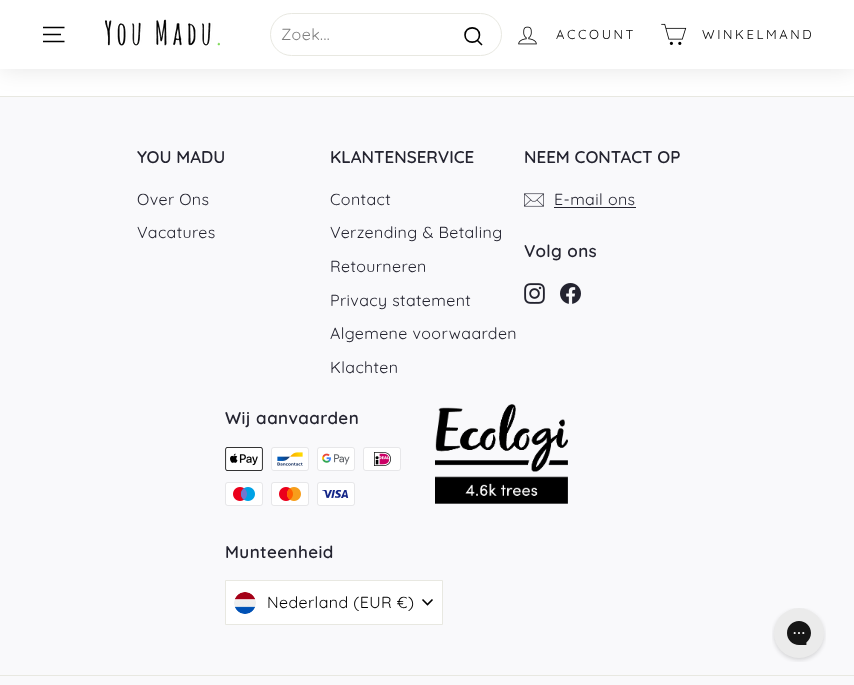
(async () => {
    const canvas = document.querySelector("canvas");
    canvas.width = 854;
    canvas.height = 685;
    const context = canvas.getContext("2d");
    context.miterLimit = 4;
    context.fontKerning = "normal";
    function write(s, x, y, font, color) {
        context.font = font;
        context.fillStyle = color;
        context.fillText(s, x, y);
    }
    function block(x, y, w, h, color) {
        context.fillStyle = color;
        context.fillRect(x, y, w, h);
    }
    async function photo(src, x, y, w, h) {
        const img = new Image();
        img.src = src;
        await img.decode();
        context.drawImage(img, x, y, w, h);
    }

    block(0, 0, 854, 685, "rgb(255, 255, 255)");
    block(0, 97, 854, 588, "rgb(249, 249, 251)");
    block(0, 96, 854, 1, "rgb(232, 232, 225)");
    context.fillStyle = "rgba(0, 0, 0, 0.1)";
    context.filter = "blur(12.5px)";
    context.beginPath();
    context.rect(0, 0, 854, 69);
    context.fill();
    context.filter = "none";
    block(0, 0, 854, 69, "rgb(255, 255, 255)");
    context.beginPath();
    context.moveTo(43, 27.5);
    context.lineTo(64.5, 27.5);
    context.moveTo(43, 34.5);
    context.lineTo(61, 34.5);
    context.moveTo(43, 41.5);
    context.lineTo(64.5, 41.5);
    context.strokeStyle = "rgb(0, 0, 0)";
    context.lineWidth = 1.7;
    context.stroke();
    await photo("media/1.png", 105, 19, 115, 27);
    context.beginPath();
    context.roundRect(270.5, 13.5, 231, 42, 21);
    context.strokeStyle = "rgb(232, 232, 225)";
    context.lineWidth = 1;
    context.stroke();
    context.letterSpacing = "0.4px";
    write("Zoek...", 281, 40, "16px Quicksand", "rgb(128, 128, 128)");
    context.beginPath();
    context.moveTo(479.5, 35);
    context.bezierCurveTo(479.5, 44.5, 465, 44.5, 465, 35);
    context.bezierCurveTo(465, 25.5, 479.5, 25.5, 479.5, 35);
    context.closePath();
    context.moveTo(482, 45);
    context.lineTo(477.5, 40.5);
    context.strokeStyle = "rgb(0, 0, 0)";
    context.lineWidth = 1.6;
    context.stroke();
    await photo("media/2.png", 518, 26, 19, 19);
    context.letterSpacing = "2.6px";
    write("ACCOUNT", 556, 39, "13px Quicksand", "rgb(0, 0, 0)");
    await photo("media/3.png", 661, 23, 26, 22);
    write("WINKELMAND", 702, 39, "13px Quicksand", "rgb(0, 0, 0)");
    context.letterSpacing = "0px";
    write("YOU MADU", 137, 163, "600 17px Quicksand", "rgb(36, 36, 48)");
    context.letterSpacing = "0.4px";
    write("Over Ons", 137, 205, "16px Quicksand", "rgb(36, 36, 48)");
    write("Vacatures", 137, 238, "16px Quicksand", "rgb(36, 36, 48)");
    context.letterSpacing = "0px";
    write("KLANTENSERVICE", 330, 163, "600 17px Quicksand", "rgb(36, 36, 48)");
    context.letterSpacing = "0.4px";
    write("Contact", 330, 205, "16px Quicksand", "rgb(36, 36, 48)");
    write("Verzending & Betaling", 330, 238, "16px Quicksand", "rgb(36, 36, 48)");
    write("Retourneren", 330, 272, "16px Quicksand", "rgb(36, 36, 48)");
    write("Privacy statement", 330, 306, "16px Quicksand", "rgb(36, 36, 48)");
    write("Algemene voorwaarden", 330, 339, "16px Quicksand", "rgb(36, 36, 48)");
    write("Klachten", 330, 373, "16px Quicksand", "rgb(36, 36, 48)");
    context.letterSpacing = "0px";
    write("NEEM CONTACT OP", 524, 163, "600 17px Quicksand", "rgb(36, 36, 48)");
    await photo("media/4.png", 524, 193, 20, 14);
    context.letterSpacing = "0.4px";
    write("E-mail ons", 554, 205, "16px Quicksand", "rgb(36, 36, 48)");
    block(554, 207, 82, 1, "rgb(36, 36, 48)");
    write("Volg ons", 524, 257, "600 17px Quicksand", "rgb(36, 36, 48)");
    await photo("media/5.png", 524, 283, 21, 21);
    await photo("media/6.png", 560, 283, 21, 21);
    write("Wij aanvaarden", 225, 424, "600 17px Quicksand", "rgb(36, 36, 48)");
    await photo("media/7.png", 225, 447, 38, 24);
    await photo("media/8.png", 271, 447, 38, 24);
    await photo("media/9.png", 317, 447, 38, 24);
    await photo("media/10.png", 363, 447, 38, 24);
    await photo("media/11.png", 225, 482, 38, 24);
    await photo("media/12.png", 271, 482, 38, 24);
    await photo("media/13.png", 317, 482, 38, 24);
    write("Munteenheid", 225, 558, "600 17px Quicksand", "rgb(36, 36, 48)");
    context.fillStyle = "rgb(255, 255, 255)";
    context.beginPath();
    context.rect(225.5, 580.5, 217, 44);
    context.fill();
    context.strokeStyle = "rgb(232, 232, 225)";
    context.lineWidth = 1;
    context.stroke();
    await photo("media/14.png", 234, 592, 22, 22);
    write("Nederland (EUR €)", 267, 608, "16px Quicksand", "rgb(0, 0, 0)");
    context.beginPath();
    context.moveTo(422.5, 599.5);
    context.lineTo(427.5, 604.5);
    context.lineTo(432.5, 599.5);
    context.strokeStyle = "rgb(0, 0, 0)";
    context.lineWidth = 1.6;
    context.stroke();
    await photo("media/15.png", 435, 404, 133, 100);
    block(0, 675, 854, 1, "rgb(232, 232, 225)");
    await photo("media/16.png", 772, 608, 54, 54);
})();
